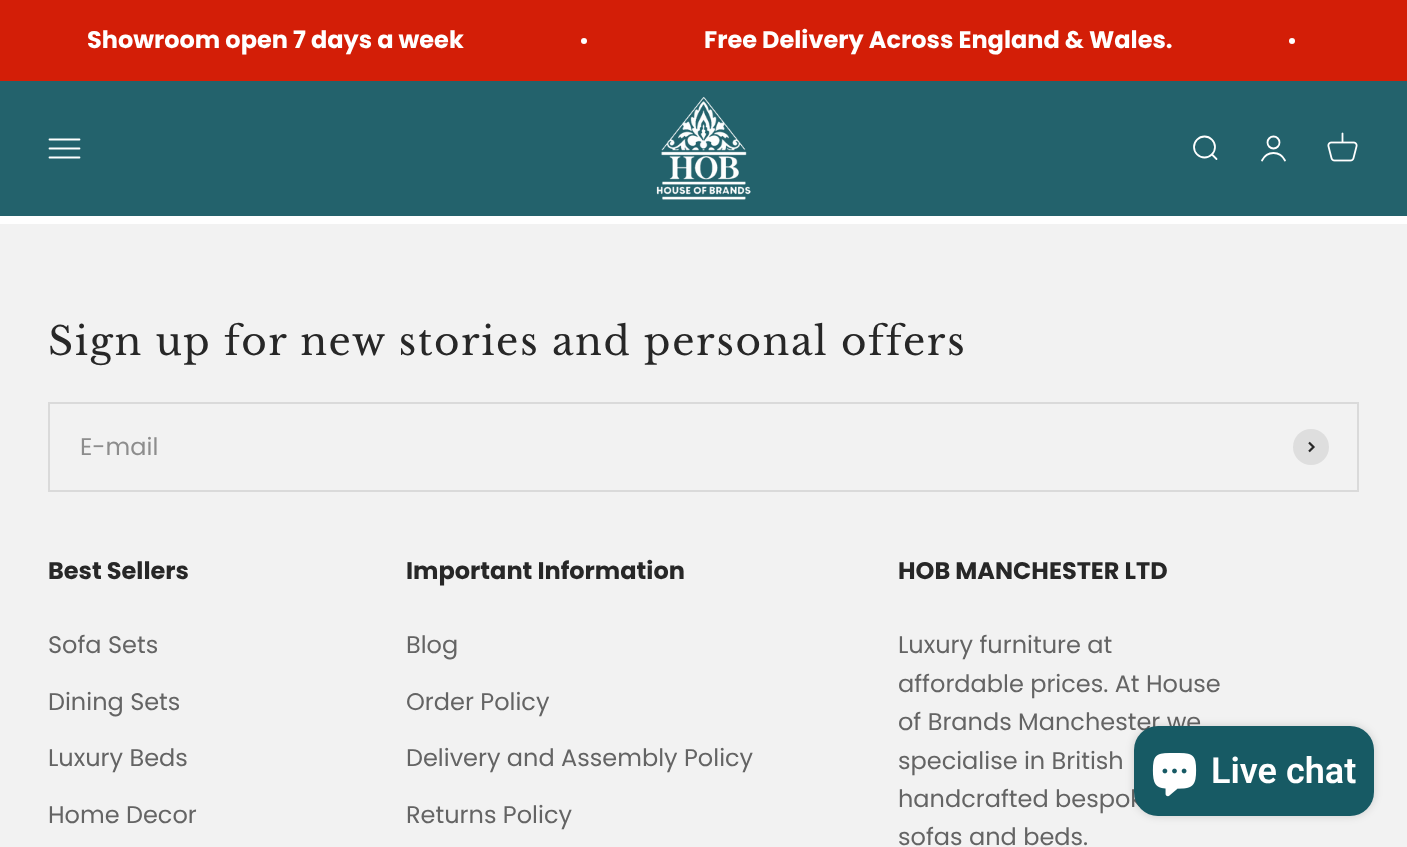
(async () => {
    const canvas = document.querySelector("canvas");
    canvas.width = 1407;
    canvas.height = 847;
    const context = canvas.getContext("2d");
    context.miterLimit = 4;
    context.fontKerning = "normal";
    function write(s, x, y, font, color) {
        context.font = font;
        context.fillStyle = color;
        context.fillText(s, x, y);
    }
    function block(x, y, w, h, color) {
        context.fillStyle = color;
        context.fillRect(x, y, w, h);
    }
    function card(x, y, w, h, r, color) {
        context.fillStyle = color;
        context.beginPath();
        context.roundRect(x, y, w, h, r);
        context.fill();
    }
    async function photo(src, x, y, w, h) {
        const img = new Image();
        img.src = src;
        await img.decode();
        context.drawImage(img, x, y, w, h);
    }

    block(0, 0, 1407, 847, "rgb(255, 255, 255)");
    block(0, 0, 1407, 81, "rgb(211, 30, 7)");
    write("Showroom open 7 days a week", 87, 48, "bold 24px Poppins", "rgb(255, 255, 255)");
    context.beginPath();
    context.arc(584, 41, 3, 0, Math.PI * 2);
    context.fill();
    write("Free Delivery Across England & Wales.", 704, 48, "bold 24px Poppins", "rgb(255, 255, 255)");
    context.beginPath();
    context.arc(1292, 41, 3, 0, Math.PI * 2);
    context.fill();
    block(0, 81, 1407, 135, "rgb(35, 98, 108)");
    context.beginPath();
    context.moveTo(49.5, 139.5);
    context.lineTo(79.5, 139.5);
    context.moveTo(49.5, 148.5);
    context.lineTo(79.5, 148.5);
    context.moveTo(49.5, 157.5);
    context.lineTo(79.5, 157.5);
    context.strokeStyle = "rgb(255, 255, 255)";
    context.lineWidth = 1.8;
    context.lineCap = "round";
    context.stroke();
    await photo("media/1.png", 656, 96, 95, 104);
    context.beginPath();
    context.arc(1204.5, 147, 10.5, 0, Math.PI * 2);
    context.stroke();
    context.beginPath();
    context.moveTo(1212, 154.5);
    context.lineTo(1216.5, 159);
    context.lineJoin = "round";
    context.stroke();
    context.beginPath();
    context.arc(1273.5, 142.5, 6, 0, Math.PI * 2);
    context.stroke();
    context.beginPath();
    context.moveTo(1262, 160.5);
    context.bezierCurveTo(1267, 150.5, 1280, 150.5, 1285, 160.5);
    context.lineJoin = "miter";
    context.stroke();
    await photo("media/2.png", 1327, 132, 31, 30);
    block(0, 224, 1407, 623, "rgb(242, 242, 242)");
    context.letterSpacing = "1.55px";
    write("Sign up for new stories and personal offers", 48, 355, "39px Libre Baskerville", "rgb(39, 39, 39)");
    context.strokeStyle = "rgb(218, 218, 218)";
    context.lineWidth = 2;
    context.strokeRect(49, 403, 1309, 88);
    context.letterSpacing = "0px";
    write("E-mail", 80, 455, "24px Poppins", "rgb(141, 141, 141)");
    context.fillStyle = "rgb(222, 222, 222)";
    context.beginPath();
    context.arc(1311, 447, 18, 0, Math.PI * 2);
    context.fill();
    context.beginPath();
    context.moveTo(1309, 451.5);
    context.lineTo(1313.5, 447);
    context.lineTo(1309, 442.5);
    context.strokeStyle = "rgb(39, 39, 39)";
    context.lineWidth = 2.2;
    context.lineCap = "butt";
    context.stroke();
    write("Best Sellers", 48, 579, "bold 24px Poppins", "rgb(39, 39, 39)");
    write("Sofa Sets", 48, 653, "24px Poppins", "rgb(100, 100, 100)");
    write("Dining Sets", 48, 710, "24px Poppins", "rgb(100, 100, 100)");
    write("Luxury Beds", 48, 766, "24px Poppins", "rgb(100, 100, 100)");
    write("Home Decor", 48, 823, "24px Poppins", "rgb(100, 100, 100)");
    write("Important Information", 406, 579, "bold 24px Poppins", "rgb(39, 39, 39)");
    write("Blog", 406, 653, "24px Poppins", "rgb(100, 100, 100)");
    write("Order Policy", 406, 710, "24px Poppins", "rgb(100, 100, 100)");
    write("Delivery and Assembly Policy", 406, 766, "24px Poppins", "rgb(100, 100, 100)");
    write("Returns Policy", 406, 823, "24px Poppins", "rgb(100, 100, 100)");
    write("HOB MANCHESTER LTD", 898, 579, "bold 24px Poppins", "rgb(39, 39, 39)");
    write("Luxury furniture at", 898, 653, "24px Poppins", "rgb(100, 100, 100)");
    write("affordable prices. At House", 898, 692, "24px Poppins", "rgb(100, 100, 100)");
    write("of Brands Manchester we", 898, 730, "24px Poppins", "rgb(100, 100, 100)");
    write("specialise in British", 898, 769, "24px Poppins", "rgb(100, 100, 100)");
    write("handcrafted bespok", 898, 807, "24px Poppins", "rgb(100, 100, 100)");
    write("sofas and beds.", 898, 845, "24px Poppins", "rgb(100, 100, 100)");
    context.fillStyle = "rgba(0, 0, 0, 0.15)";
    context.filter = "blur(4px)";
    context.beginPath();
    context.roundRect(1134, 726, 240, 90, 24);
    context.fill();
    context.filter = "none";
    card(1134, 726, 240, 90, 24, "rgb(23, 90, 100)");
    await photo("media/3.png", 1152, 753, 45, 44);
    write("Live chat", 1211, 783, "600 36px Roboto", "rgb(255, 255, 255)");
})();
